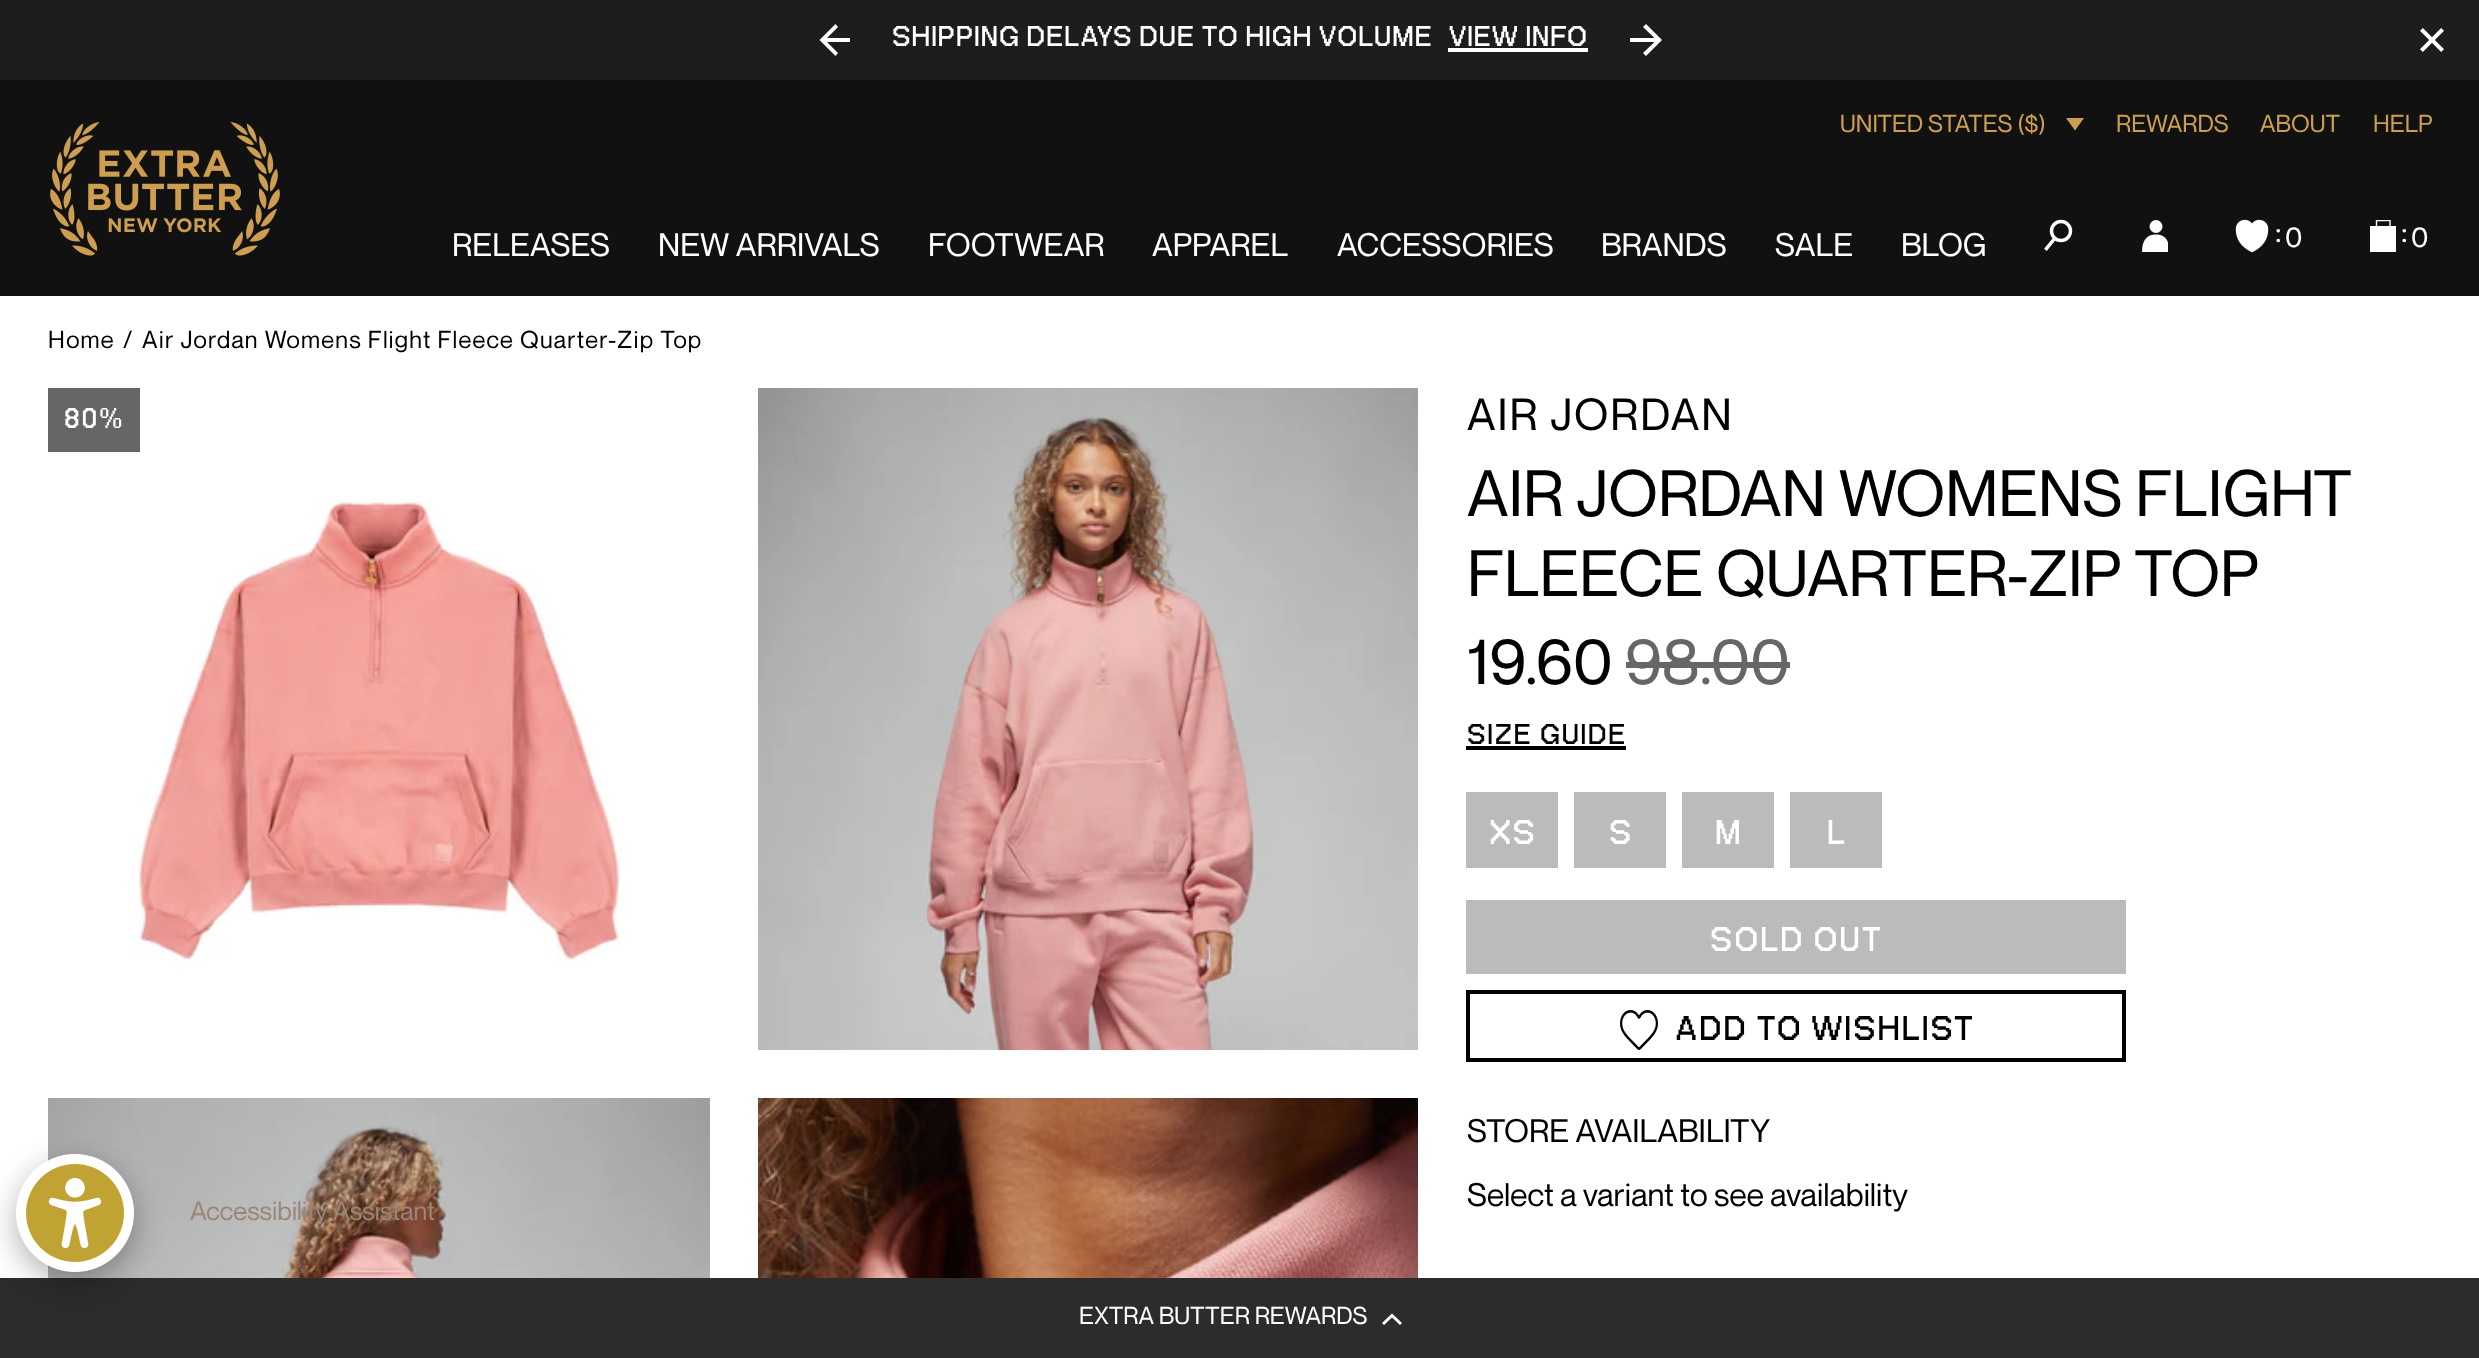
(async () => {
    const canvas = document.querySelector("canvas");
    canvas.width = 2479;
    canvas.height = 1358;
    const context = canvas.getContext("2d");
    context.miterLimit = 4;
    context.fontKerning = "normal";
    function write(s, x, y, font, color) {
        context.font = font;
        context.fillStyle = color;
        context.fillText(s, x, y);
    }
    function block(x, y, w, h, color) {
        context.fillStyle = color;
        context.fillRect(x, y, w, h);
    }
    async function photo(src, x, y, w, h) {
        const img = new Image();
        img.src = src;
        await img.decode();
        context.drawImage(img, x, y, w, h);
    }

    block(0, 0, 2479, 1358, "rgb(255, 255, 255)");
    block(0, 0, 2479, 80, "rgb(30, 29, 28)");
    context.save();
    context.beginPath();
    context.rect(818, 24, 32, 32);
    context.clip();
    context.fillStyle = "rgb(255, 255, 255)";
    context.beginPath();
    context.moveTo(835.5, 56);
    context.lineTo(838, 53);
    context.lineTo(827, 42);
    context.lineTo(851.5, 42);
    context.lineTo(851.5, 38);
    context.lineTo(827, 38);
    context.lineTo(838, 27);
    context.lineTo(835.5, 24);
    context.lineTo(819.5, 40);
    context.closePath();
    context.fill();
    context.restore();
    context.letterSpacing = "1px";
    write("SHIPPING DELAYS DUE TO HIGH VOLUME", 892, 46, "bold 40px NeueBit", "rgb(255, 255, 255)");
    write("VIEW INFO", 1449, 46, "bold 40px NeueBit", "rgb(255, 255, 255)");
    block(1448, 48, 140, 4, "rgb(255, 255, 255)");
    context.beginPath();
    context.moveTo(1646, 24);
    context.lineTo(1643, 27);
    context.lineTo(1654.5, 38);
    context.lineTo(1630, 38);
    context.lineTo(1630, 42);
    context.lineTo(1654.5, 42);
    context.lineTo(1643, 53);
    context.lineTo(1646, 56);
    context.lineTo(1662, 40);
    context.closePath();
    context.fill();
    await photo("media/1.png", 2420, 28, 24, 24);
    block(0, 80, 2479, 216, "rgb(17, 17, 17)");
    context.letterSpacing = "0px";
    write("UNITED STATES ($)", 1840, 132, "24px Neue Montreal", "rgb(205, 158, 79)");
    context.beginPath();
    context.moveTo(2066, 118);
    context.lineTo(2084, 118);
    context.lineTo(2075, 130.5);
    context.closePath();
    context.fill("evenodd");
    write("REWARDS", 2116, 132, "24px Neue Montreal", "rgb(205, 158, 79)");
    write("ABOUT", 2260, 132, "24px Neue Montreal", "rgb(205, 158, 79)");
    write("HELP", 2373, 132, "24px Neue Montreal", "rgb(205, 158, 79)");
    await photo("media/2.png", 50, 122, 230, 134);
    write("RELEASES", 452, 256, "32px Neue Montreal", "rgb(255, 255, 255)");
    write("NEW ARRIVALS", 658, 256, "32px Neue Montreal", "rgb(255, 255, 255)");
    write("FOOTWEAR", 928, 256, "32px Neue Montreal", "rgb(255, 255, 255)");
    write("APPAREL", 1152, 256, "32px Neue Montreal", "rgb(255, 255, 255)");
    write("ACCESSORIES", 1337, 256, "32px Neue Montreal", "rgb(255, 255, 255)");
    write("BRANDS", 1601, 256, "32px Neue Montreal", "rgb(255, 255, 255)");
    write("SALE", 1775, 256, "32px Neue Montreal", "rgb(255, 255, 255)");
    write("BLOG", 1901, 256, "32px Neue Montreal", "rgb(255, 255, 255)");
    context.beginPath();
    context.arc(2061, 231, 9.5, 0, Math.PI * 2);
    context.strokeStyle = "rgb(255, 255, 255)";
    context.lineWidth = 3.4;
    context.stroke();
    context.beginPath();
    context.moveTo(2053.5, 240);
    context.lineTo(2046.5, 248.5);
    context.lineCap = "square";
    context.stroke();
    context.save();
    context.beginPath();
    context.rect(2142, 220, 26, 32);
    context.clip();
    context.beginPath();
    context.moveTo(2156, 234.5);
    context.bezierCurveTo(2165, 234.5, 2169.5, 240.5, 2169.5, 252);
    context.lineTo(2142, 252);
    context.bezierCurveTo(2142, 240.5, 2146.5, 234.5, 2156, 234.5);
    context.closePath();
    context.fill("evenodd");
    context.restore();
    context.beginPath();
    context.arc(2156, 226.5, 6.5, 0, Math.PI * 2);
    context.fill();
    await photo("media/3.png", 2235, 219, 34, 34);
    write(":", 2275, 242, "32px Neue Montreal", "rgb(255, 255, 255)");
    context.letterSpacing = "1.2px";
    write("0", 2285, 247, "28px Neue Montreal", "rgb(255, 255, 255)");
    block(2370, 226, 26, 26, "rgb(255, 255, 255)");
    context.save();
    context.beginPath();
    context.rect(2370, 220, 26, 32);
    context.clip();
    context.beginPath();
    context.moveTo(2376.5, 220.5);
    context.lineTo(2390, 220.5);
    context.lineTo(2390, 230.5);
    context.lineTo(2376.5, 230.5);
    context.closePath();
    context.lineWidth = 1.4;
    context.lineCap = "butt";
    context.stroke();
    context.restore();
    context.letterSpacing = "0px";
    write(":", 2401, 242, "32px Neue Montreal", "rgb(255, 255, 255)");
    context.letterSpacing = "1.2px";
    write("0", 2411, 247, "28px Neue Montreal", "rgb(255, 255, 255)");
    write("Home", 48, 348, "24px Neue Montreal", "rgb(0, 0, 0)");
    write("/", 123, 348, "24px Neue Montreal", "rgb(0, 0, 0)");
    write("Air Jordan Womens Flight Fleece Quarter-Zip Top", 142, 348, "24px Neue Montreal", "rgb(0, 0, 0)");
    await photo("media/4.png", 48, 388, 662, 662);
    await photo("media/5.png", 758, 388, 660, 662);
    await photo("media/6.png", 48, 1098, 662, 180);
    await photo("media/7.png", 758, 1098, 660, 180);
    block(48, 388, 92, 64, "rgb(102, 102, 102)");
    context.letterSpacing = "1.75px";
    write("80%", 64, 428, "bold 40px NeueBit", "rgb(255, 255, 255)");
    context.letterSpacing = "2px";
    write("AIR JORDAN", 1467, 430, "44px Neue Montreal", "rgb(0, 0, 0)");
    context.letterSpacing = "0px";
    write("AIR JORDAN WOMENS FLIGHT", 1467, 516, "64px Neue Montreal", "rgb(0, 0, 0)");
    write("FLEECE QUARTER-ZIP TOP", 1467, 596, "64px Neue Montreal", "rgb(0, 0, 0)");
    write("19.60", 1467, 684, "64px Neue Montreal", "rgb(0, 0, 0)");
    write("98.00", 1625, 684, "64px Neue Montreal", "rgb(102, 102, 102)");
    block(1626, 662, 164, 6, "rgb(102, 102, 102)");
    context.letterSpacing = "1.75px";
    write("SIZE GUIDE", 1467, 744, "bold 40px NeueBit", "rgb(0, 0, 0)");
    block(1466, 746, 160, 4, "rgb(0, 0, 0)");
    block(1466, 792, 92, 76, "rgb(187, 187, 187)");
    context.letterSpacing = "2px";
    write("XS", 1489, 844, "bold 48px NeueBit", "rgb(255, 255, 255)");
    block(1574, 792, 92, 76, "rgb(187, 187, 187)");
    write("S", 1609, 844, "bold 48px NeueBit", "rgb(255, 255, 255)");
    block(1682, 792, 92, 76, "rgb(187, 187, 187)");
    write("M", 1715, 844, "bold 48px NeueBit", "rgb(255, 255, 255)");
    block(1790, 792, 92, 76, "rgb(187, 187, 187)");
    write("L", 1827, 844, "bold 48px NeueBit", "rgb(255, 255, 255)");
    block(1466, 900, 660, 74, "rgb(187, 187, 187)");
    write("SOLD OUT", 1710, 951, "bold 48px NeueBit", "rgb(255, 255, 255)");
    context.strokeStyle = "rgb(0, 0, 0)";
    context.lineWidth = 4;
    context.strokeRect(1468, 992, 656, 68);
    await photo("media/8.png", 1620, 1010, 38, 40);
    write("ADD TO WISHLIST", 1675, 1040, "bold 48px NeueBit", "rgb(0, 0, 0)");
    context.letterSpacing = "0px";
    write("STORE AVAILABILITY", 1467, 1142, "32px Neue Montreal", "rgb(0, 0, 0)");
    write("Select a variant to see availability", 1467, 1206, "32px Neue Montreal", "rgb(0, 0, 0)");
    block(0, 1278, 2479, 80, "rgb(44, 44, 44)");
    write("EXTRA BUTTER REWARDS", 1079, 1324, "24px Neue Montreal", "rgb(255, 255, 255)");
    context.beginPath();
    context.moveTo(1392, 1317.5);
    context.lineTo(1384, 1325);
    context.lineTo(1382, 1323);
    context.lineTo(1392, 1313.5);
    context.lineTo(1402, 1323);
    context.lineTo(1400, 1325);
    context.closePath();
    context.fill();
    context.fillStyle = "rgba(0, 0, 0, 0.3)";
    context.filter = "blur(15px)";
    context.beginPath();
    context.roundRect(16, 1164, 118, 118, 59);
    context.fill();
    context.filter = "none";
    await photo("media/9.png", 16, 1154, 118, 118);
    write("Accessibility Assistant", 190, 1220, "26px Neue Montreal", "rgb(154, 133, 121)");
})();
